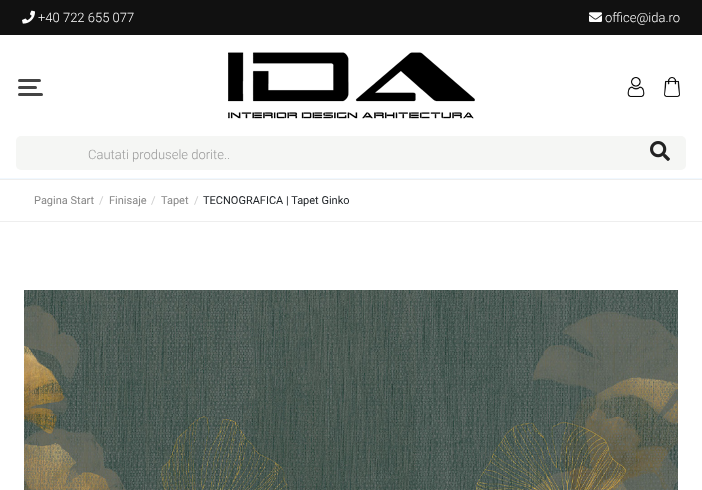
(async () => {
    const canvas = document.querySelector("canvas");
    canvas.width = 702;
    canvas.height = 490;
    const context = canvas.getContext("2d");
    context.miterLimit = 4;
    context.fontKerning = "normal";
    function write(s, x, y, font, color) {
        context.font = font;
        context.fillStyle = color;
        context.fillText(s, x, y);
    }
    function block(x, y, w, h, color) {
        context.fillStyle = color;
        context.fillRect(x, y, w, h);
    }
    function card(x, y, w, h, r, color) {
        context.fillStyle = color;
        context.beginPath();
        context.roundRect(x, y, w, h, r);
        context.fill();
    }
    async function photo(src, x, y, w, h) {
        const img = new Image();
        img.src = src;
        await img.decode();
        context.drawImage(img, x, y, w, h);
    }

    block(0, 0, 702, 490, "rgb(255, 255, 255)");
    block(0, 179, 702, 1, "rgb(238, 238, 238)");
    block(0, 0, 702, 35, "rgb(17, 17, 17)");
    await photo("media/1.png", 22, 10, 13, 14);
    write("+40 722 655 077", 38, 22, "300 13px Roboto", "rgb(255, 255, 255)");
    await photo("media/2.png", 589, 12, 13, 10);
    write("office@ida.ro", 605, 22, "300 13px Roboto", "rgb(255, 255, 255)");
    card(18, 79, 23, 3, 1.5, "rgb(68, 68, 68)");
    card(18, 86, 19, 3, 1.5, "rgb(68, 68, 68)");
    card(18, 93, 25, 3, 1.5, "rgb(68, 68, 68)");
    await photo("media/3.png", 228, 52, 247, 67);
    await photo("media/4.png", 627, 77, 18, 20);
    await photo("media/5.png", 664, 77, 16, 20);
    card(16, 136, 670, 34, 5, "rgb(245, 246, 244)");
    write("Cautati produsele dorite..", 88, 159, "300 13px Roboto", "rgb(153, 153, 153)");
    await photo("media/6.png", 650, 141, 20, 20);
    block(0, 178, 702, 1, "rgb(240, 248, 255)");
    block(0, 221, 702, 1, "rgb(238, 238, 238)");
    write("Pagina Start", 34, 204, "11px Roboto", "rgb(136, 136, 136)");
    write("/", 99, 204, "11px Roboto", "rgb(204, 204, 204)");
    write("Finisaje", 109, 204, "11px Roboto", "rgb(136, 136, 136)");
    write("/", 151, 204, "11px Roboto", "rgb(204, 204, 204)");
    write("Tapet", 161, 204, "11px Roboto", "rgb(136, 136, 136)");
    write("/", 194, 204, "11px Roboto", "rgb(204, 204, 204)");
    write("TECNOGRAFICA | Tapet Ginko", 203, 204, "11px Roboto", "rgb(33, 37, 41)");
    await photo("media/7.png", 24, 290, 654, 200);
})();
